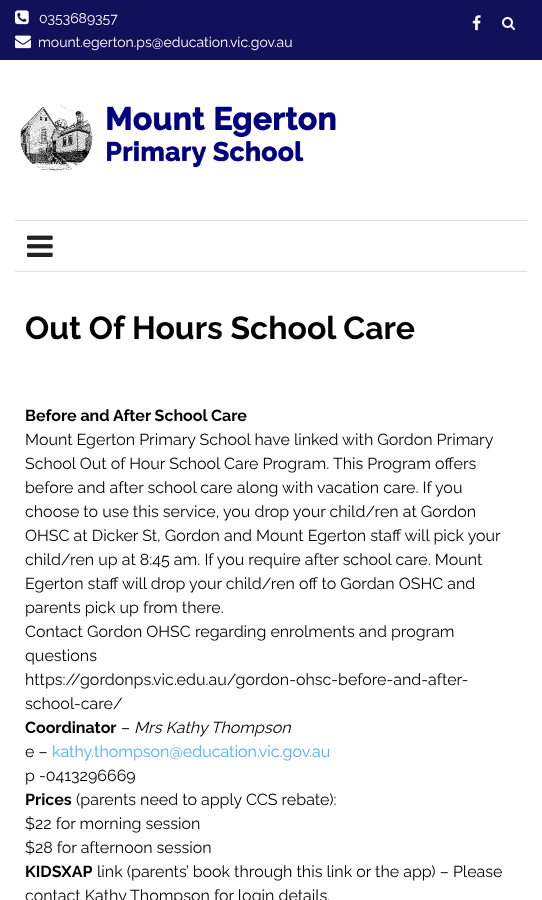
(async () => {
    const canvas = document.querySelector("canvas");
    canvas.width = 542;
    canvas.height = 900;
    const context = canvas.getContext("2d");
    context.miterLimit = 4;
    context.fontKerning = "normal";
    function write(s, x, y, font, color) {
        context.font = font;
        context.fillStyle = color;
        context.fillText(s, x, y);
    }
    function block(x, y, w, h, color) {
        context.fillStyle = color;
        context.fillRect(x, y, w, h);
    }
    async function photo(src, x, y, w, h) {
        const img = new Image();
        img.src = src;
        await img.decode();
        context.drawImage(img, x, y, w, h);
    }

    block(0, 0, 542, 900, "rgb(255, 255, 255)");
    block(0, 0, 542, 60, "rgb(17, 17, 91)");
    await photo("media/1.png", 15, 10, 14, 15);
    write("0353689357", 39, 23, "14px Raleway", "rgb(255, 255, 255)");
    await photo("media/2.png", 15, 35, 16, 14);
    write("mount.egerton.ps@education.vic.gov.au", 38, 47, "14px Raleway", "rgb(255, 255, 255)");
    await photo("media/3.png", 472, 15, 9, 16);
    await photo("media/4.png", 502, 17, 13, 13);
    await photo("media/5.png", 20, 104, 316, 67);
    block(15, 220, 512, 1, "rgb(222, 222, 222)");
    block(15, 271, 512, 1, "rgb(222, 222, 222)");
    await photo("media/6.png", 27, 235, 26, 22);
    write("Out Of Hours School Care", 25, 339, "bold 32px Raleway", "rgb(0, 0, 0)");
    write("Before and After School Care", 25, 421, "bold 16px Raleway", "rgb(0, 0, 0)");
    write("Mount Egerton Primary School have linked with Gordon Primary", 25, 445, "16px Raleway", "rgb(0, 0, 0)");
    write("School Out of Hour School Care Program. This Program offers", 25, 469, "16px Raleway", "rgb(0, 0, 0)");
    write("before and after school care along with vacation care. If you", 25, 493, "16px Raleway", "rgb(0, 0, 0)");
    write("choose to use this service, you drop your child/ren at Gordon", 25, 517, "16px Raleway", "rgb(0, 0, 0)");
    write("OHSC at Dicker St, Gordon and Mount Egerton staff will pick your", 25, 541, "16px Raleway", "rgb(0, 0, 0)");
    write("child/ren up at 8:45 am. If you require after school care. Mount", 25, 565, "16px Raleway", "rgb(0, 0, 0)");
    write("Egerton staff will drop your child/ren off to Gordan OSHC and", 25, 589, "16px Raleway", "rgb(0, 0, 0)");
    write("parents pick up from there.", 25, 613, "16px Raleway", "rgb(0, 0, 0)");
    write("Contact Gordon OHSC regarding enrolments and program", 25, 637, "16px Raleway", "rgb(0, 0, 0)");
    write("questions", 25, 661, "16px Raleway", "rgb(0, 0, 0)");
    write("https://gordonps.vic.edu.au/gordon-ohsc-before-and-after-", 25, 685, "16px Raleway", "rgb(0, 0, 0)");
    write("school-care/", 25, 709, "16px Raleway", "rgb(0, 0, 0)");
    write("Coordinator", 25, 733, "bold 16px Raleway", "rgb(0, 0, 0)");
    write("–", 121, 733, "16px Raleway", "rgb(0, 0, 0)");
    write("Mrs Kathy Thompson", 134, 733, "italic 16px Raleway", "rgb(0, 0, 0)");
    write("e –", 25, 757, "16px Raleway", "rgb(0, 0, 0)");
    write("kathy.thompson@education.vic.gov.au", 52, 757, "16px Raleway", "rgb(86, 170, 255)");
    write("p -0413296669", 25, 781, "16px Raleway", "rgb(0, 0, 0)");
    write("Prices", 25, 805, "bold 16px Raleway", "rgb(0, 0, 0)");
    write("(parents need to apply CCS rebate):", 76, 805, "16px Raleway", "rgb(0, 0, 0)");
    write("$22 for morning session", 25, 829, "16px Raleway", "rgb(0, 0, 0)");
    write("$28 for afternoon session", 25, 853, "16px Raleway", "rgb(0, 0, 0)");
    write("KIDSXAP", 25, 877, "bold 16px Raleway", "rgb(0, 0, 0)");
    write("link (parents’ book through this link or the app) – Please", 97, 877, "16px Raleway", "rgb(0, 0, 0)");
    write("contact Kathy Thompson for login details.", 25, 901, "16px Raleway", "rgb(0, 0, 0)");
})();
